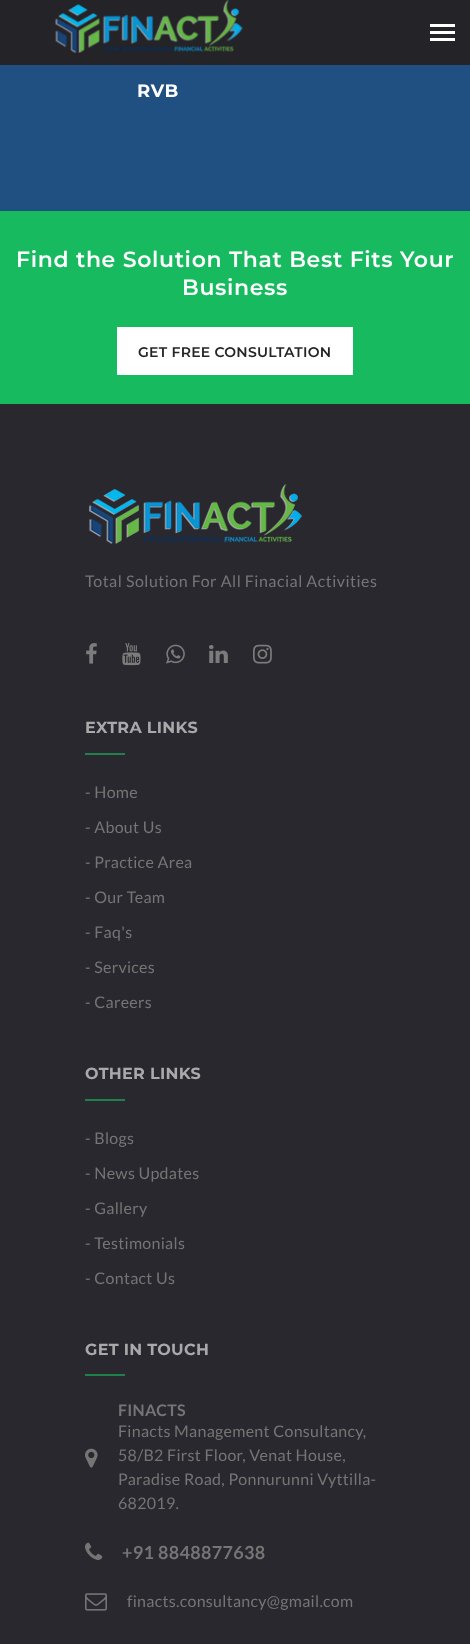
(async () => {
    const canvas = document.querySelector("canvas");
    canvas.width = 470;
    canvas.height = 1644;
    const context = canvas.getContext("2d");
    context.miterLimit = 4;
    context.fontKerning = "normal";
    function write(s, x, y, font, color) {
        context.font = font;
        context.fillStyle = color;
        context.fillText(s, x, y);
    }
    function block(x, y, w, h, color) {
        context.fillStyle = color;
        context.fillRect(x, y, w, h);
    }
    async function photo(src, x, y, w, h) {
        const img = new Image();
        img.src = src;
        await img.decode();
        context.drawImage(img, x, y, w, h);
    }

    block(0, 0, 470, 1644, "rgb(32, 80, 129)");
    block(0, 0, 470, 65, "rgb(36, 35, 40)");
    await photo("media/1.png", 55, 0, 188, 53);
    block(430, 24, 25, 3, "rgb(255, 255, 255)");
    block(430, 31, 25, 3, "rgb(255, 255, 255)");
    block(430, 38, 25, 3, "rgb(255, 255, 255)");
    context.letterSpacing = "0.5px";
    write("RVB", 137, 97, "bold 18px Montserrat", "rgb(255, 255, 255)");
    block(0, 211, 470, 193, "rgb(24, 186, 96)");
    context.letterSpacing = "0.65px";
    write("Find the Solution That Best Fits Your", 16, 267, "600 22px Montserrat", "rgb(255, 255, 255)");
    write("Business", 182, 295, "600 22px Montserrat", "rgb(255, 255, 255)");
    block(117, 327, 236, 48, "rgb(255, 255, 255)");
    context.letterSpacing = "0.25px";
    write("GET FREE CONSULTATION", 138, 357, "600 14px Montserrat", "rgb(36, 36, 36)");
    block(0, 404, 470, 1240, "rgb(41, 40, 46)");
    await photo("media/2.png", 89, 484, 213, 60);
    context.letterSpacing = "0.5px";
    write("Total Solution For All Finacial Activities", 85, 587, "16px Lato", "rgb(117, 117, 117)");
    await photo("media/3.png", 86, 643, 11, 21);
    await photo("media/4.png", 122, 643, 19, 23);
    await photo("media/5.png", 166, 644, 19, 20);
    await photo("media/6.png", 209, 645, 19, 18);
    await photo("media/7.png", 253, 644, 19, 20);
    context.letterSpacing = "0.3px";
    write("EXTRA LINKS", 85, 733, "bold 16px Montserrat", "rgb(169, 169, 171)");
    block(85, 753, 40, 2, "rgb(31, 128, 76)");
    write("- Home", 85, 798, "16px Lato", "rgb(117, 117, 117)");
    write("- About Us", 85, 833, "16px Lato", "rgb(117, 117, 117)");
    write("- Practice Area", 85, 868, "16px Lato", "rgb(117, 117, 117)");
    write("- Our Team", 85, 903, "16px Lato", "rgb(117, 117, 117)");
    write("- Faq's", 85, 938, "16px Lato", "rgb(117, 117, 117)");
    write("- Services", 85, 973, "16px Lato", "rgb(117, 117, 117)");
    write("- Careers", 85, 1008, "16px Lato", "rgb(117, 117, 117)");
    write("OTHER LINKS", 85, 1079, "bold 16px Montserrat", "rgb(169, 169, 171)");
    block(85, 1099, 40, 2, "rgb(31, 128, 76)");
    write("- Blogs", 85, 1144, "16px Lato", "rgb(117, 117, 117)");
    write("- News Updates", 85, 1179, "16px Lato", "rgb(117, 117, 117)");
    write("- Gallery", 85, 1214, "16px Lato", "rgb(117, 117, 117)");
    write("- Testimonials", 85, 1249, "16px Lato", "rgb(117, 117, 117)");
    write("- Contact Us", 85, 1284, "16px Lato", "rgb(117, 117, 117)");
    write("GET IN TOUCH", 85, 1355, "bold 16px Montserrat", "rgb(169, 169, 171)");
    block(85, 1374, 40, 2, "rgb(31, 128, 76)");
    await photo("media/8.png", 85, 1448, 13, 20);
    write("FINACTS", 118, 1416, "bold 16px Lato", "rgb(117, 117, 117)");
    write("Finacts Management Consultancy,", 118, 1437, "16px Lato", "rgb(117, 117, 117)");
    write("58/B2 First Floor, Venat House,", 118, 1461, "16px Lato", "rgb(117, 117, 117)");
    write("Paradise Road, Ponnurunni Vyttilla-", 118, 1485, "16px Lato", "rgb(117, 117, 117)");
    write("682019.", 118, 1509, "16px Lato", "rgb(117, 117, 117)");
    await photo("media/9.png", 85, 1542, 18, 18);
    write("+91 8848877638", 122, 1559, "bold 18px Lato", "rgb(117, 117, 117)");
    await photo("media/10.png", 85, 1593, 22, 18);
    write("finacts.consultancy@gmail.com", 127, 1607, "16px Lato", "rgb(117, 117, 117)");
})();
